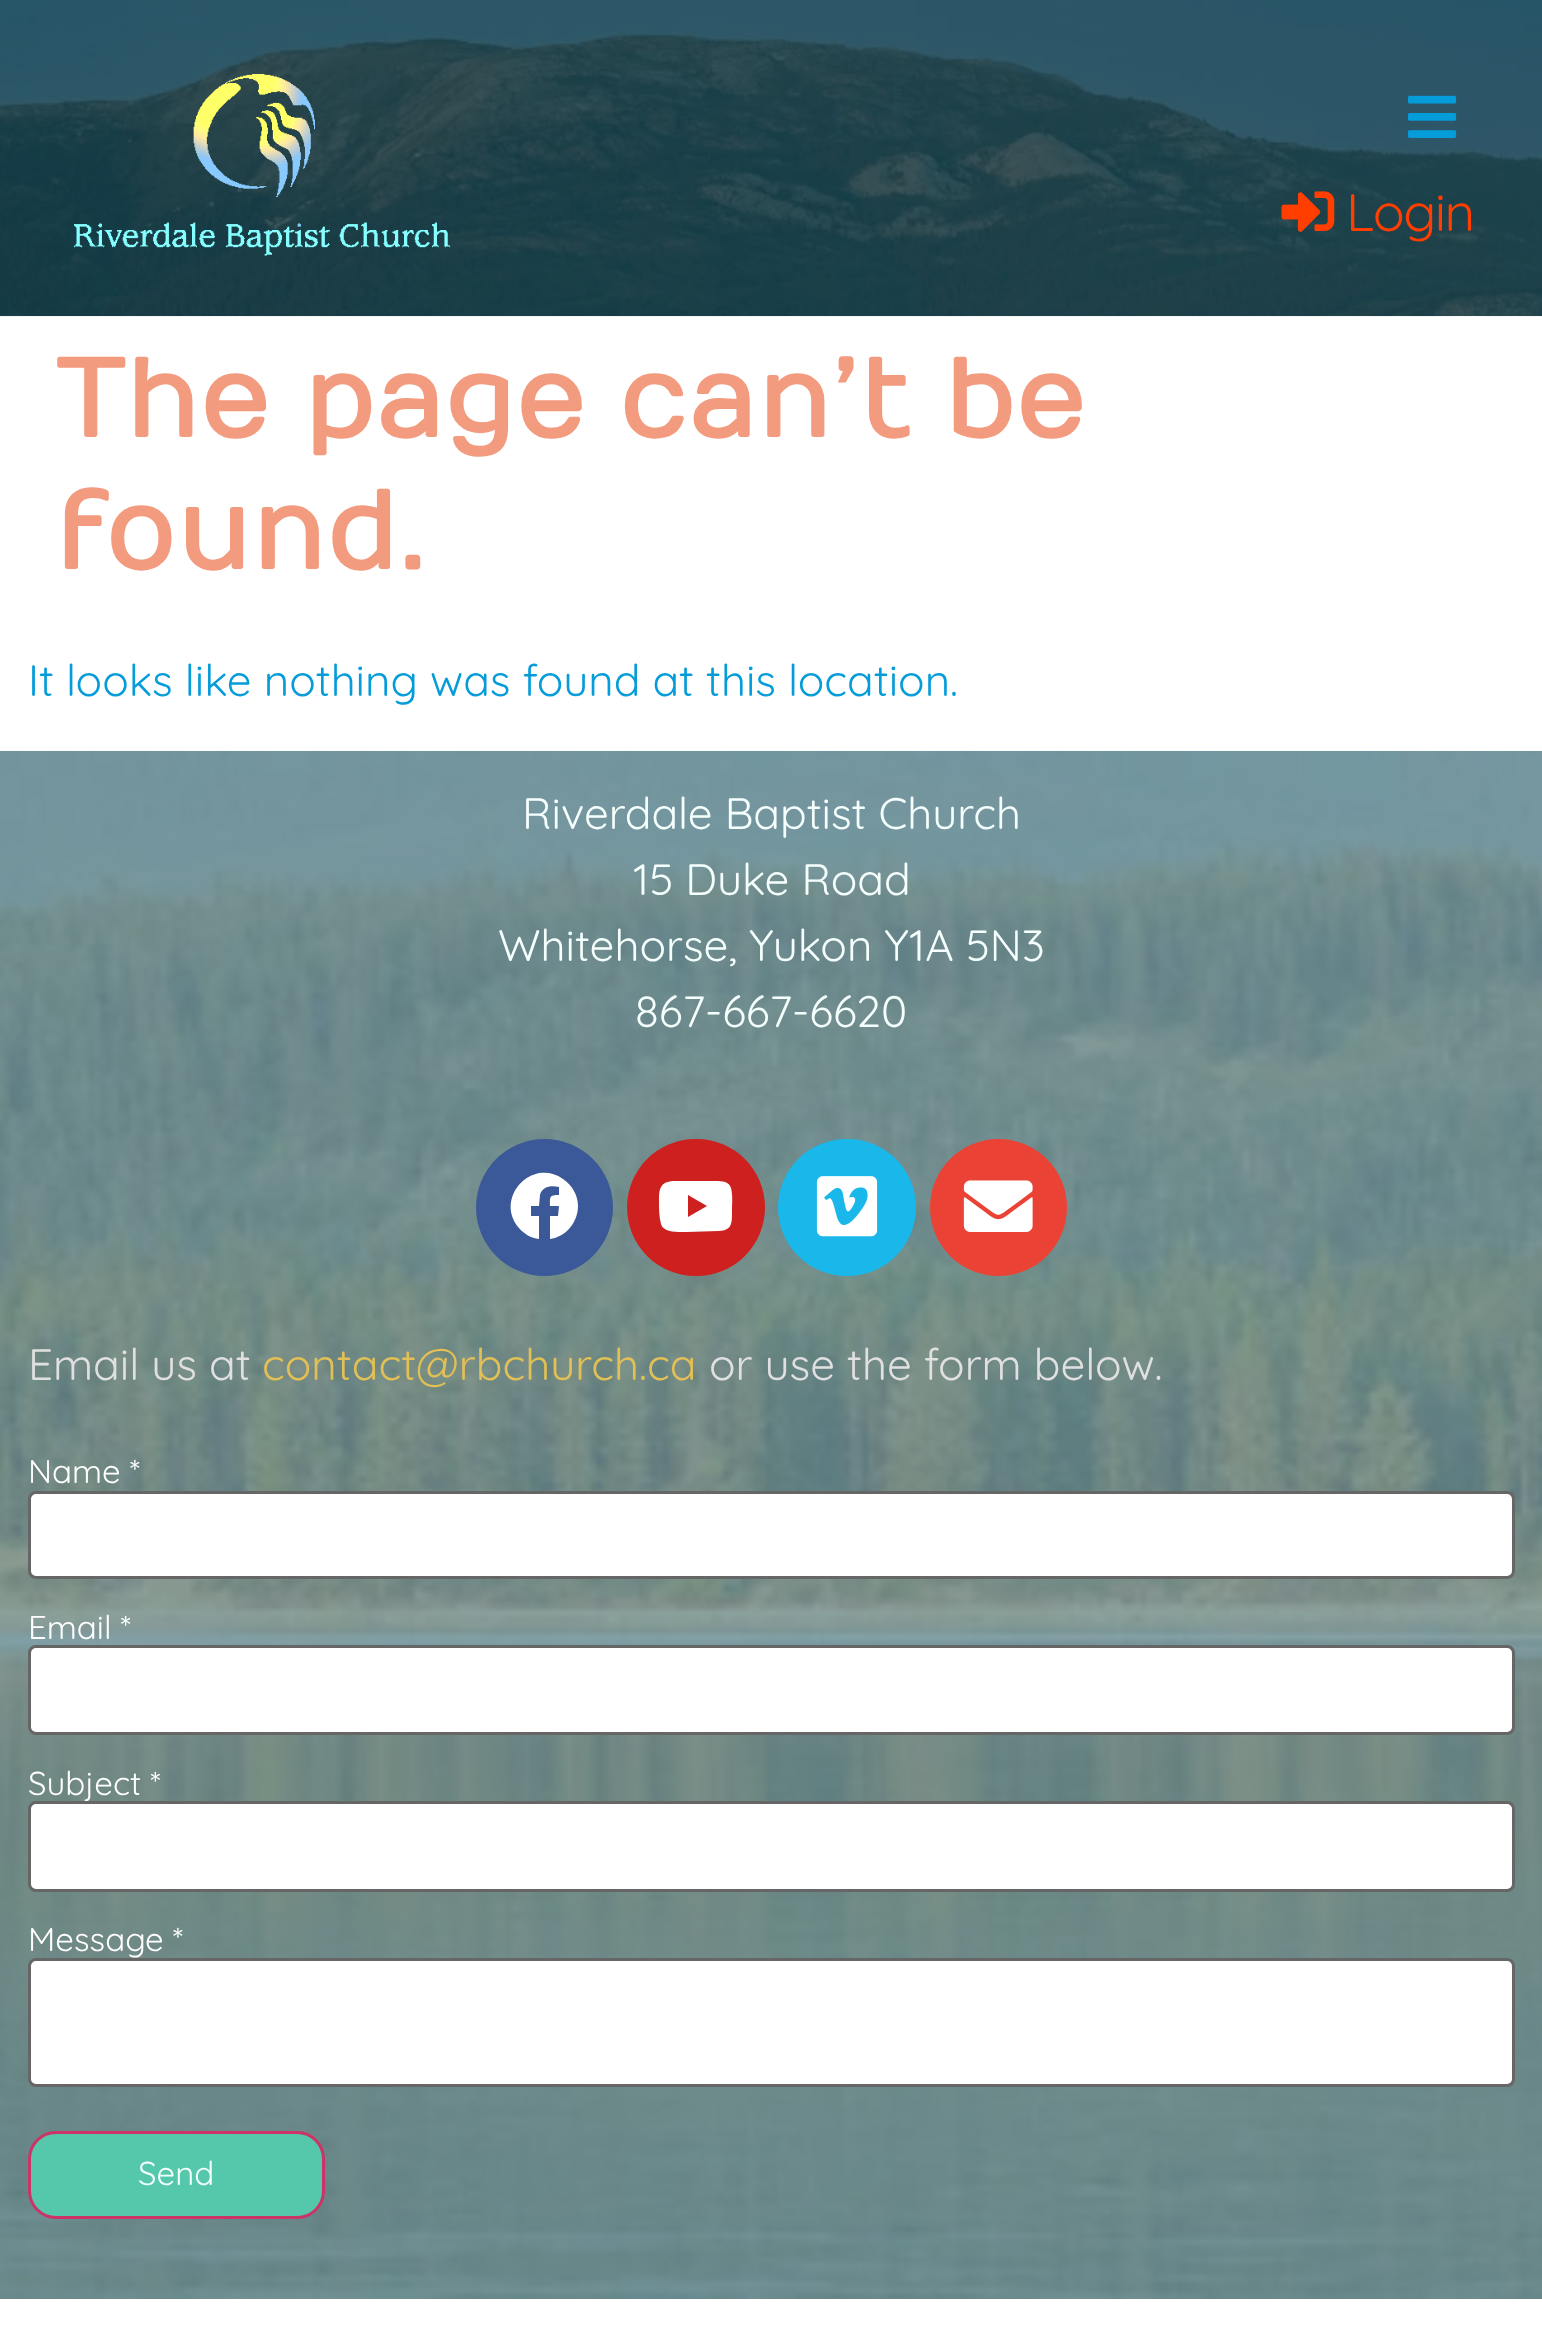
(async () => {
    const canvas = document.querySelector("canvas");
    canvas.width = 1542;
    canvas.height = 2351;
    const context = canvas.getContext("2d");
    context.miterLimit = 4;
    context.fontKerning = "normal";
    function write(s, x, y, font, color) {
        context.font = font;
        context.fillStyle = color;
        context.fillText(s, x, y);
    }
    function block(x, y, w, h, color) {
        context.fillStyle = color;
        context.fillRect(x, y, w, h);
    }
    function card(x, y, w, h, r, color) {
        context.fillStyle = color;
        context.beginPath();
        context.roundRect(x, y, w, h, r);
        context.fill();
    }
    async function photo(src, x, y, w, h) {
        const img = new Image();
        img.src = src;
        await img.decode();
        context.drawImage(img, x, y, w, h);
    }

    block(0, 0, 1542, 2351, "rgb(255, 255, 255)");
    block(0, 0, 1542, 316, "rgb(26, 62, 71)");
    await photo("media/1.png", 0, 0, 1542, 317);
    await photo("media/2.png", 74, 74, 377, 182);
    await photo("media/3.png", 1408, 95, 49, 43);
    await photo("media/4.png", 1281, 191, 54, 41);
    context.letterSpacing = "-1.5px";
    write("Login", 1346, 231, "53px Quicksand", "rgb(255, 62, 0)");
    context.letterSpacing = "0px";
    write("The page can’t be", 55, 437, "bold 110px Numans", "rgb(243, 155, 127)");
    write("found.", 55, 569, "bold 110px Numans", "rgb(243, 155, 127)");
    write("It looks like nothing was found at this location.", 28, 696, "44px Quicksand", "rgb(5, 156, 218)");
    block(0, 751, 1542, 1548, "rgb(109, 149, 158)");
    await photo("media/5.png", 0, 750, 1542, 1549);
    write("Riverdale Baptist Church", 522, 829, "44px Quicksand", "rgb(245, 255, 253)");
    write("15 Duke Road", 633, 895, "44px Quicksand", "rgb(245, 255, 253)");
    write("Whitehorse, Yukon Y1A 5N3", 498, 961, "44px Quicksand", "rgb(245, 255, 253)");
    write("867-667-6620", 635, 1027, "44px Quicksand", "rgb(245, 255, 253)");
    context.fillStyle = "rgb(59, 89, 152)";
    context.beginPath();
    context.arc(544.5, 1207.5, 68.5, 0, Math.PI * 2);
    context.fill();
    context.fillStyle = "rgb(255, 255, 255)";
    context.beginPath();
    context.moveTo(578, 1206);
    context.bezierCurveTo(578, 1222, 566, 1237, 550, 1239);
    context.lineTo(550, 1216);
    context.lineTo(558, 1216);
    context.lineTo(559, 1206);
    context.lineTo(550, 1206);
    context.bezierCurveTo(550, 1197, 549, 1195, 559, 1195);
    context.lineTo(559, 1187);
    context.bezierCurveTo(552, 1185, 542, 1186, 540, 1195);
    context.lineTo(539, 1206);
    context.lineTo(531, 1206);
    context.lineTo(531, 1216);
    context.lineTo(539, 1216);
    context.lineTo(539, 1239);
    context.bezierCurveTo(531, 1238, 524, 1234, 519, 1228);
    context.bezierCurveTo(494, 1199, 531, 1157, 563, 1179);
    context.bezierCurveTo(572, 1185, 578, 1195, 578, 1206);
    context.closePath();
    context.fill();
    card(627, 1139, 138, 137, 68.5, "rgb(205, 32, 31)");
    context.fillStyle = "rgb(255, 255, 255)";
    context.beginPath();
    context.moveTo(731, 1188);
    context.bezierCurveTo(733, 1196, 732, 1204, 732, 1211);
    context.bezierCurveTo(732, 1224, 732, 1230, 719, 1231);
    context.lineTo(686, 1232);
    context.bezierCurveTo(679, 1232, 663, 1233, 661, 1224);
    context.bezierCurveTo(659, 1217, 659, 1209, 659, 1201);
    context.bezierCurveTo(659, 1189, 660, 1182, 673, 1181);
    context.lineTo(690, 1181);
    context.lineTo(711, 1181);
    context.bezierCurveTo(718, 1181, 729, 1180, 731, 1188);
    context.closePath();
    context.moveTo(688, 1217);
    context.lineTo(707, 1206);
    context.lineTo(688, 1195);
    context.closePath();
    context.fill();
    card(778, 1139, 138, 137, 68.5, "rgb(26, 183, 234)");
    await photo("media/6.png", 816, 1176, 62, 61);
    context.fillStyle = "rgb(234, 67, 53)";
    context.beginPath();
    context.arc(998.5, 1207.5, 68.5, 0, Math.PI * 2);
    context.fill();
    await photo("media/7.png", 963, 1180, 70, 52);
    write("Email us at", 28, 1380, "44px Quicksand", "rgb(224, 224, 224)");
    write("contact@rbchurch.ca", 262, 1380, "44px Quicksand", "rgb(227, 192, 86)");
    write("or use the form below.", 709, 1380, "44px Quicksand", "rgb(224, 224, 224)");
    write("Name *", 28, 1483, "33px Quicksand", "rgb(255, 255, 255)");
    context.beginPath();
    context.roundRect(29.5, 1492.5, 1484, 85, 6.5);
    context.fill();
    context.strokeStyle = "rgb(102, 102, 102)";
    context.lineWidth = 3;
    context.stroke();
    write("Email *", 28, 1639, "33px Quicksand", "rgb(255, 255, 255)");
    context.beginPath();
    context.roundRect(29.5, 1646.5, 1484, 87, 6.5);
    context.fill();
    context.stroke();
    write("Subject *", 28, 1795, "33px Quicksand", "rgb(255, 255, 255)");
    context.beginPath();
    context.roundRect(29.5, 1802.5, 1484, 88, 6.5);
    context.fill();
    context.stroke();
    write("Message *", 28, 1951, "33px Quicksand", "rgb(255, 255, 255)");
    context.beginPath();
    context.roundRect(29.5, 1959.5, 1484, 126, 6.5);
    context.fill();
    context.stroke();
    context.fillStyle = "rgb(85, 200, 171)";
    context.beginPath();
    context.roundRect(29.5, 2132.5, 294, 85, 26.5);
    context.fill();
    context.strokeStyle = "rgb(204, 51, 102)";
    context.stroke();
    write("Send", 138, 2185, "33px Quicksand", "rgb(245, 255, 253)");
})();
